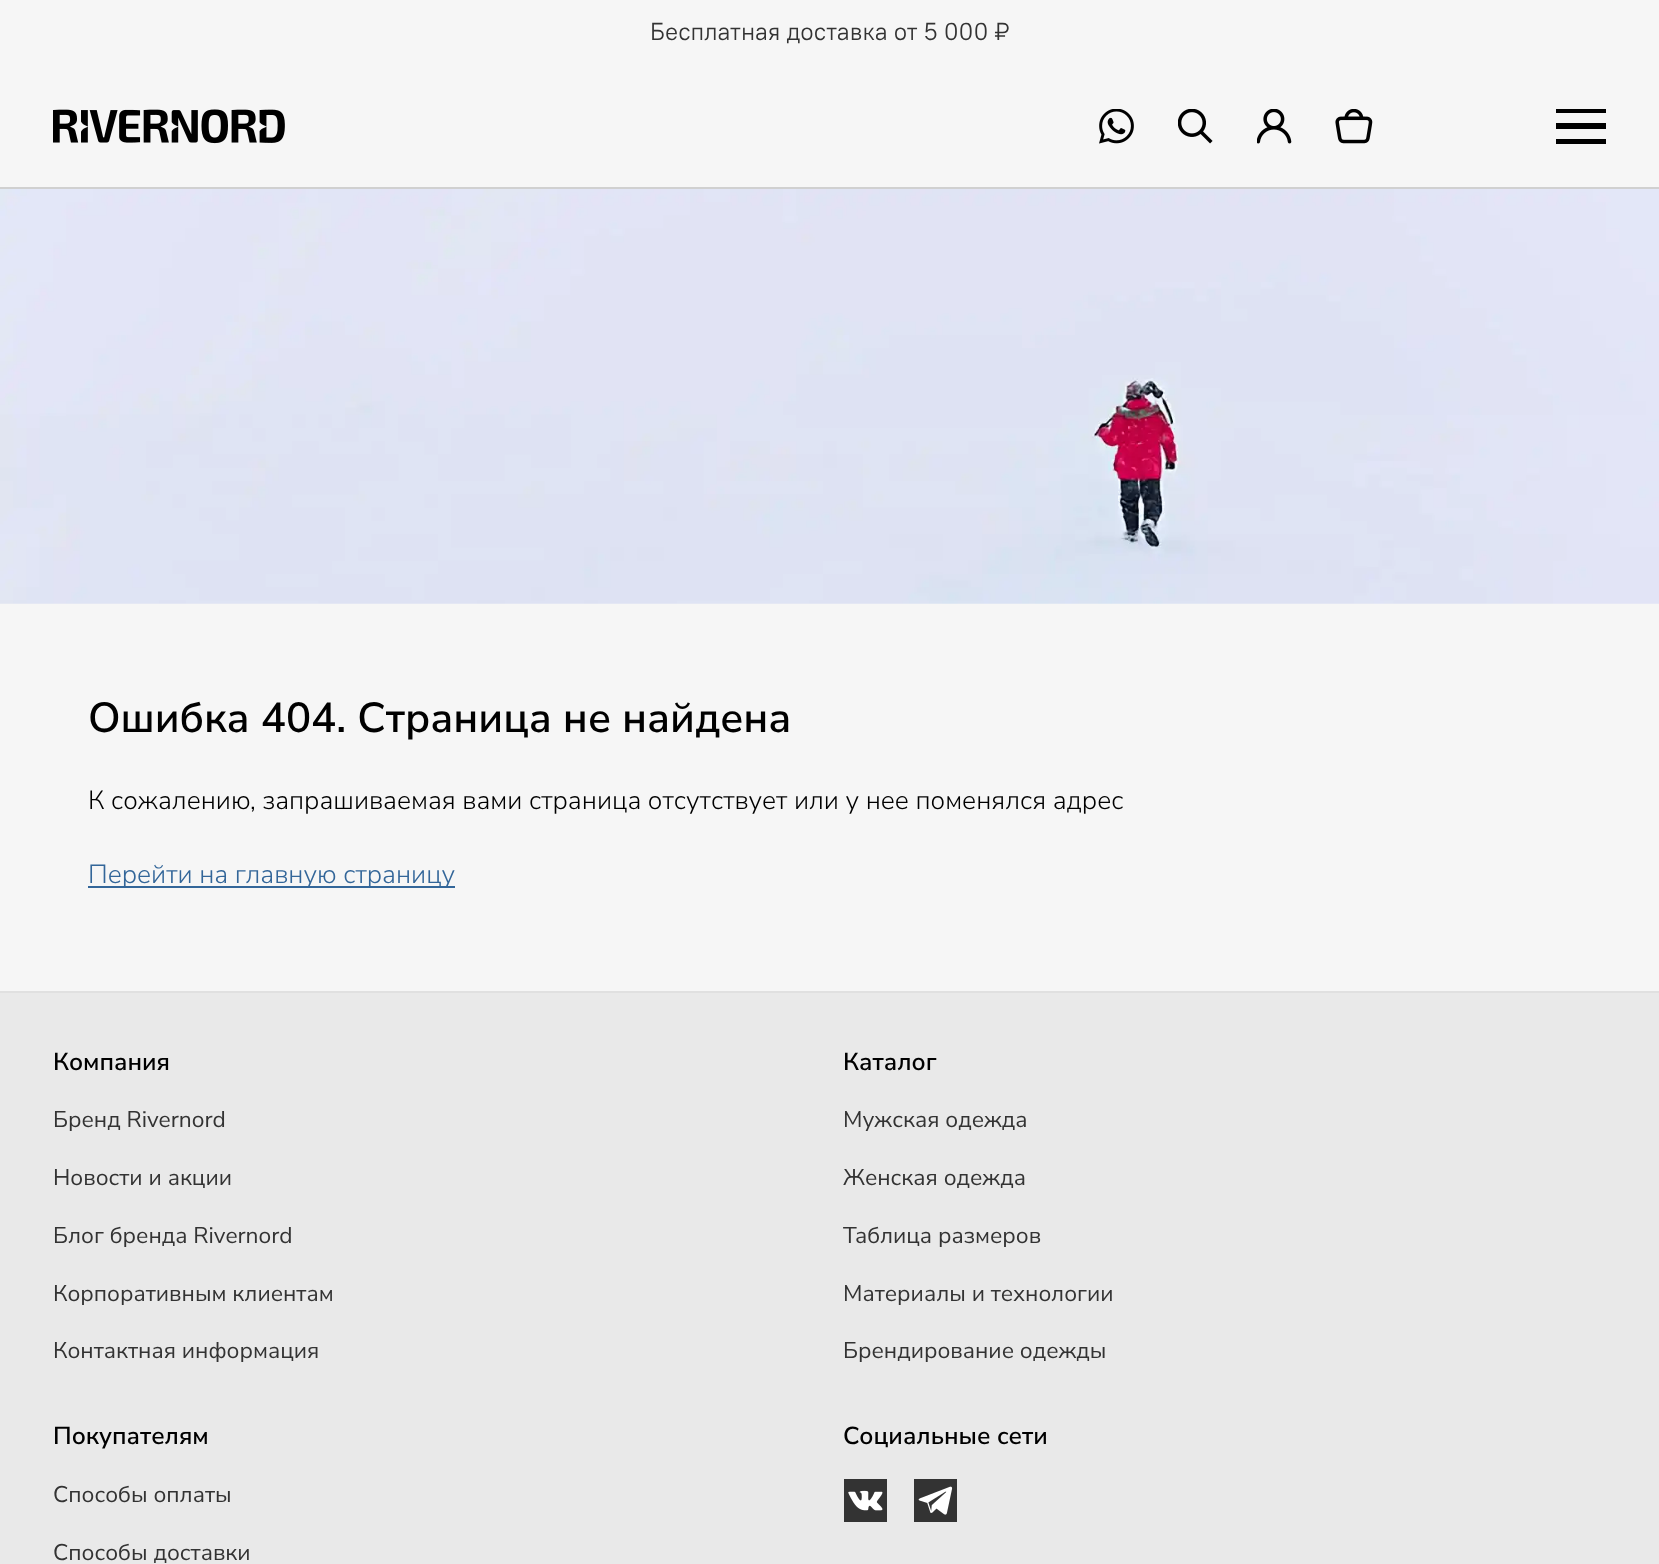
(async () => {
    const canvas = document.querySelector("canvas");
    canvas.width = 1659;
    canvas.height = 1564;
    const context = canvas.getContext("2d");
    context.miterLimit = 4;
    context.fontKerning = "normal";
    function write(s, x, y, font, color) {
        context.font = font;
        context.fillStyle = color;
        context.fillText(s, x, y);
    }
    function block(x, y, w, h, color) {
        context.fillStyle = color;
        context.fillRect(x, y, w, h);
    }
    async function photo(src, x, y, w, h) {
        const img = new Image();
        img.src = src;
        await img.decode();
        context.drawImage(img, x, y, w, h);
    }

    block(0, 0, 1659, 1564, "rgb(246, 246, 246)");
    write("Бесплатная доставка от 5 000 ₽", 650, 40, "24.5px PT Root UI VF", "rgb(51, 51, 51)");
    block(0, 187, 1659, 2, "rgb(208, 208, 208)");
    await photo("media/1.png", 53, 109, 232, 35);
    await photo("media/2.png", 1099, 109, 35, 35);
    await photo("media/3.png", 1178, 109, 35, 35);
    await photo("media/4.png", 1257, 109, 35, 35);
    await photo("media/5.png", 1335, 109, 38, 35);
    context.save();
    context.beginPath();
    context.rect(1556, 109, 51, 35);
    context.clip();
    context.fillStyle = "rgb(0, 0, 0)";
    context.beginPath();
    context.moveTo(1556, 108);
    context.lineTo(1606, 108);
    context.lineTo(1606, 113);
    context.lineTo(1556, 113);
    context.closePath();
    context.moveTo(1556, 123);
    context.lineTo(1606, 123);
    context.lineTo(1606, 129);
    context.lineTo(1556, 129);
    context.closePath();
    context.moveTo(1556, 139);
    context.lineTo(1606, 139);
    context.lineTo(1606, 144);
    context.lineTo(1556, 144);
    context.closePath();
    context.fill();
    context.restore();
    await photo("media/6.png", 0, 189, 1659, 415);
    write("Ошибка 404. Страница не найдена", 88, 732, "200 42px Nunito Sans", "rgb(0, 0, 0)");
    write("К сожалению, запрашиваемая вами страница отсутствует или у нее поменялся адрес", 88, 809, "200 26.25px 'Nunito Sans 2'", "rgb(0, 0, 0)");
    block(88, 886, 367, 2, "rgb(51, 102, 153)");
    write("Перейти на главную страницу", 88, 883, "200 26.25px 'Nunito Sans 2'", "rgb(51, 102, 153)");
    block(0, 993, 1659, 571, "rgb(233, 233, 233)");
    block(0, 991, 1659, 2, "rgb(224, 224, 224)");
    write("Компания", 53, 1070, "200 24.5px Nunito Sans", "rgb(0, 0, 0)");
    write("Бренд Rivernord", 53, 1127, "200 22.75px 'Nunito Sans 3'", "rgb(51, 51, 51)");
    write("Новости и акции", 53, 1185, "200 22.75px 'Nunito Sans 3'", "rgb(51, 51, 51)");
    write("Блог бренда Rivernord", 53, 1243, "200 22.75px 'Nunito Sans 3'", "rgb(51, 51, 51)");
    write("Корпоративным клиентам", 53, 1301, "200 22.75px 'Nunito Sans 3'", "rgb(51, 51, 51)");
    write("Контактная информация", 53, 1358, "200 22.75px 'Nunito Sans 3'", "rgb(51, 51, 51)");
    write("Каталог", 843, 1070, "200 24.5px Nunito Sans", "rgb(0, 0, 0)");
    write("Мужская одежда", 843, 1127, "200 22.75px 'Nunito Sans 3'", "rgb(51, 51, 51)");
    write("Женская одежда", 843, 1185, "200 22.75px 'Nunito Sans 3'", "rgb(51, 51, 51)");
    write("Таблица размеров", 843, 1243, "200 22.75px 'Nunito Sans 3'", "rgb(51, 51, 51)");
    write("Материалы и технологии", 843, 1301, "200 22.75px 'Nunito Sans 3'", "rgb(51, 51, 51)");
    write("Брендирование одежды", 843, 1358, "200 22.75px 'Nunito Sans 3'", "rgb(51, 51, 51)");
    write("Покупателям", 53, 1444, "200 24.5px Nunito Sans", "rgb(0, 0, 0)");
    write("Способы оплаты", 53, 1502, "200 22.75px 'Nunito Sans 3'", "rgb(51, 51, 51)");
    write("Способы доставки", 53, 1560, "200 22.75px 'Nunito Sans 3'", "rgb(51, 51, 51)");
    write("Социальные сети", 843, 1444, "200 24.5px Nunito Sans", "rgb(0, 0, 0)");
    await photo("media/7.png", 844, 1479, 43, 43);
    await photo("media/8.png", 914, 1479, 43, 43);
})();
